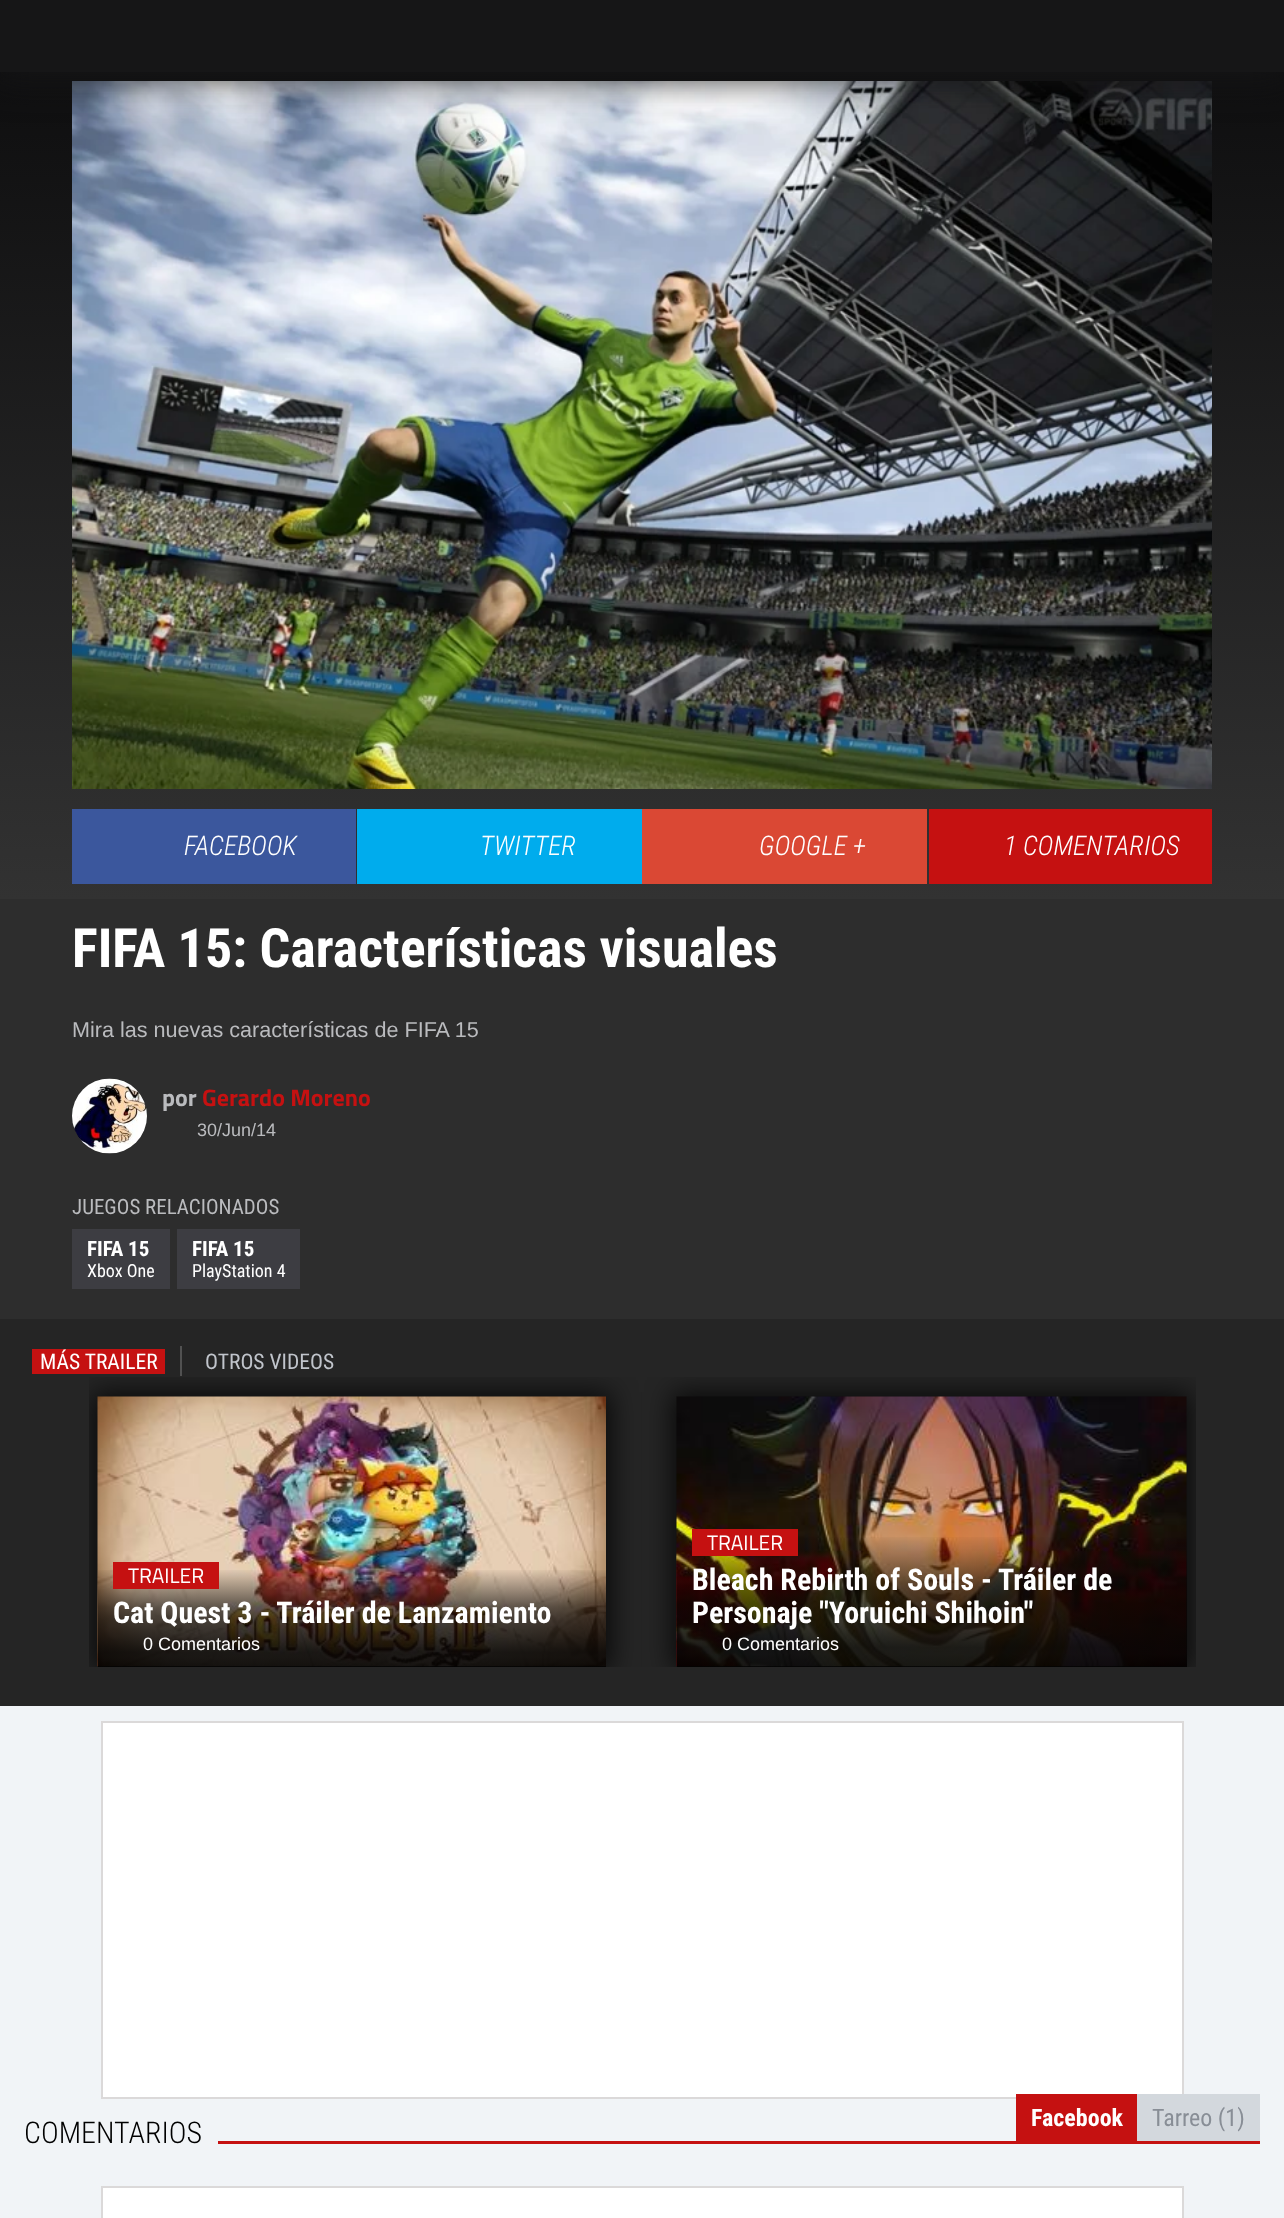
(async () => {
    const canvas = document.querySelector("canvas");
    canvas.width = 1284;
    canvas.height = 2218;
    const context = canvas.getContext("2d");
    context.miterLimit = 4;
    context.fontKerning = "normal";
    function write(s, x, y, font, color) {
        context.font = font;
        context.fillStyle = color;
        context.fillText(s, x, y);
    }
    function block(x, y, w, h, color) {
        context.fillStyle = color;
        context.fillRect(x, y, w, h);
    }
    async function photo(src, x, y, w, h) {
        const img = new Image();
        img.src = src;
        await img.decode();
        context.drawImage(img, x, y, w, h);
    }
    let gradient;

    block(0, 0, 1284, 2218, "rgb(241, 244, 247)");
    gradient = context.createLinearGradient(642, 39, 642, 899);
    gradient.addColorStop(0, "rgb(13, 13, 14)");
    gradient.addColorStop(1, "rgb(50, 50, 50)");
    context.fillStyle = gradient;
    context.fillRect(0, 72, 1284, 827);
    await photo("media/1.png", 72, 81, 1140, 708);
    context.fillStyle = "rgb(22, 22, 23)";
    context.filter = "blur(19px)";
    context.beginPath();
    context.rect(-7, -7, 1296, 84);
    context.fill();
    context.filter = "none";
    block(0, 0, 1284, 72, "rgb(22, 22, 23)");
    block(72, 809, 284, 75, "rgb(59, 87, 157)");
    write("FACEBOOK", 184, 855, "italic 300 27px Roboto Condensed", "rgb(255, 255, 255)");
    block(357, 809, 285, 75, "rgb(0, 172, 237)");
    write("TWITTER", 480, 855, "italic 300 27px Roboto Condensed", "rgb(255, 255, 255)");
    block(642, 809, 285, 75, "rgb(218, 72, 52)");
    write("GOOGLE +", 759, 855, "italic 300 27px Roboto Condensed", "rgb(255, 255, 255)");
    block(929, 809, 283, 75, "rgb(197, 17, 17)");
    write("1 COMENTARIOS", 1004, 855, "italic 300 27px Roboto Condensed", "rgb(255, 255, 255)");
    block(0, 899, 1284, 420, "rgb(45, 45, 45)");
    write("FIFA 15: Características visuales", 72, 967, "bold 54px Roboto Condensed", "rgb(255, 255, 255)");
    write("Mira las nuevas características de FIFA 15", 72, 1037, "21.6px Liberation Sans", "rgb(186, 187, 190)");
    await photo("media/2.png", 72, 1078, 75, 76);
    write("por", 162, 1106, "bold 24px Titillium Web", "rgb(186, 187, 190)");
    write("Gerardo Moreno", 202, 1106, "bold 24px Titillium Web", "rgb(197, 17, 17)");
    write("30/Jun/14", 197, 1136, "18px Liberation Sans", "rgb(186, 187, 190)");
    write("JUEGOS RELACIONADOS", 72, 1214, "21px Roboto Condensed", "rgb(186, 187, 190)");
    block(72, 1229, 98, 60, "rgb(61, 61, 66)");
    write("FIFA 15", 87, 1256, "bold 21px Roboto Condensed", "rgb(255, 255, 255)");
    write("Xbox One", 87, 1277, "18px Roboto Condensed", "rgb(255, 255, 255)");
    block(177, 1229, 123, 60, "rgb(61, 61, 66)");
    write("FIFA 15", 192, 1256, "bold 21px Roboto Condensed", "rgb(255, 255, 255)");
    write("PlayStation 4", 192, 1277, "18px Roboto Condensed", "rgb(255, 255, 255)");
    block(0, 1319, 1284, 387, "rgb(37, 37, 37)");
    block(32, 1349, 133, 25, "rgb(197, 17, 17)");
    write("MÁS TRAILER", 40, 1369, "21.6px Roboto Condensed", "rgb(255, 255, 255)");
    block(180, 1346, 2, 30, "rgb(81, 81, 81)");
    write("OTROS VIDEOS", 205, 1369, "21.6px Roboto Condensed", "rgb(192, 196, 203)");
    context.save();
    context.beginPath();
    context.rect(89, 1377, 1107, 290);
    context.clip();
    context.fillStyle = "rgba(0, 0, 0, 0.75)";
    context.filter = "blur(13.5px)";
    context.beginPath();
    context.rect(93, 1392, 518, 279);
    context.fill();
    context.filter = "none";
    context.restore();
    await photo("media/3.png", 97, 1396, 509, 271);
    gradient = context.createLinearGradient(352, 1569, 352, 1667);
    gradient.addColorStop(0, "rgba(2, 2, 2, 0.01)");
    gradient.addColorStop(0.39, "rgba(3, 3, 3, 0.6)");
    gradient.addColorStop(0.51, "rgba(3, 3, 3, 0.7)");
    gradient.addColorStop(0.69, "rgba(4, 4, 4, 0.8)");
    gradient.addColorStop(0.85, "rgba(5, 5, 5, 0.9)");
    gradient.addColorStop(0.9, "rgba(5, 5, 5, 0.9)");
    gradient.addColorStop(1, "rgba(0, 0, 0, 0.9)");
    context.fillStyle = gradient;
    context.fillRect(98, 1570, 508, 97);
    block(113, 1562, 106, 27, "rgb(197, 17, 17)");
    write("TRAILER", 128, 1583, "21px Titillium Web", "rgb(255, 255, 255)");
    write("Cat Quest 3 - Tráiler de Lanzamiento", 113, 1623, "bold 30px Roboto Condensed", "rgb(255, 255, 255)");
    write("0 Comentarios", 143, 1650, "18px Liberation Sans", "rgb(255, 255, 255)");
    context.save();
    context.beginPath();
    context.rect(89, 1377, 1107, 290);
    context.clip();
    context.fillStyle = "rgba(0, 0, 0, 0.75)";
    context.filter = "blur(13.5px)";
    context.beginPath();
    context.rect(672, 1392, 519, 279);
    context.fill();
    context.filter = "none";
    context.restore();
    await photo("media/4.png", 676, 1396, 511, 271);
    gradient = context.createLinearGradient(932, 1536, 932, 1667);
    gradient.addColorStop(0, "rgba(2, 2, 2, 0.01)");
    gradient.addColorStop(0.39, "rgba(3, 3, 3, 0.6)");
    gradient.addColorStop(0.51, "rgba(3, 3, 3, 0.7)");
    gradient.addColorStop(0.69, "rgba(4, 4, 4, 0.8)");
    gradient.addColorStop(0.85, "rgba(5, 5, 5, 0.9)");
    gradient.addColorStop(0.9, "rgba(5, 5, 5, 0.9)");
    gradient.addColorStop(1, "rgba(0, 0, 0, 0.9)");
    context.fillStyle = gradient;
    context.fillRect(677, 1537, 510, 130);
    block(692, 1529, 106, 27, "rgb(197, 17, 17)");
    write("TRAILER", 707, 1550, "21px Titillium Web", "rgb(255, 255, 255)");
    write("Bleach Rebirth of Souls - Tráiler de", 692, 1590, "bold 30px Roboto Condensed", "rgb(255, 255, 255)");
    write("Personaje \"Yoruichi Shihoin\"", 692, 1623, "bold 30px Roboto Condensed", "rgb(255, 255, 255)");
    write("0 Comentarios", 722, 1650, "18px Liberation Sans", "rgb(255, 255, 255)");
    context.beginPath();
    context.rect(102, 1722, 1081, 376);
    context.fill();
    context.strokeStyle = "rgb(219, 217, 217)";
    context.lineWidth = 2;
    context.stroke();
    write("COMENTARIOS", 24, 2143, "300 30px Roboto Condensed", "rgb(0, 0, 0)");
    block(218, 2141, 1042, 3, "rgb(197, 17, 17)");
    block(1016, 2094, 121, 47, "rgb(197, 17, 17)");
    write("Facebook", 1031, 2126, "bold 24px Roboto Condensed", "rgb(255, 255, 255)");
    block(1137, 2094, 123, 47, "rgb(211, 216, 221)");
    write("Tarreo (1)", 1152, 2126, "24px Roboto Condensed", "rgb(136, 142, 150)");
    context.fillStyle = "rgb(255, 255, 255)";
    context.beginPath();
    context.rect(102, 2187, 1081, 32);
    context.fill();
    context.stroke();
})();
